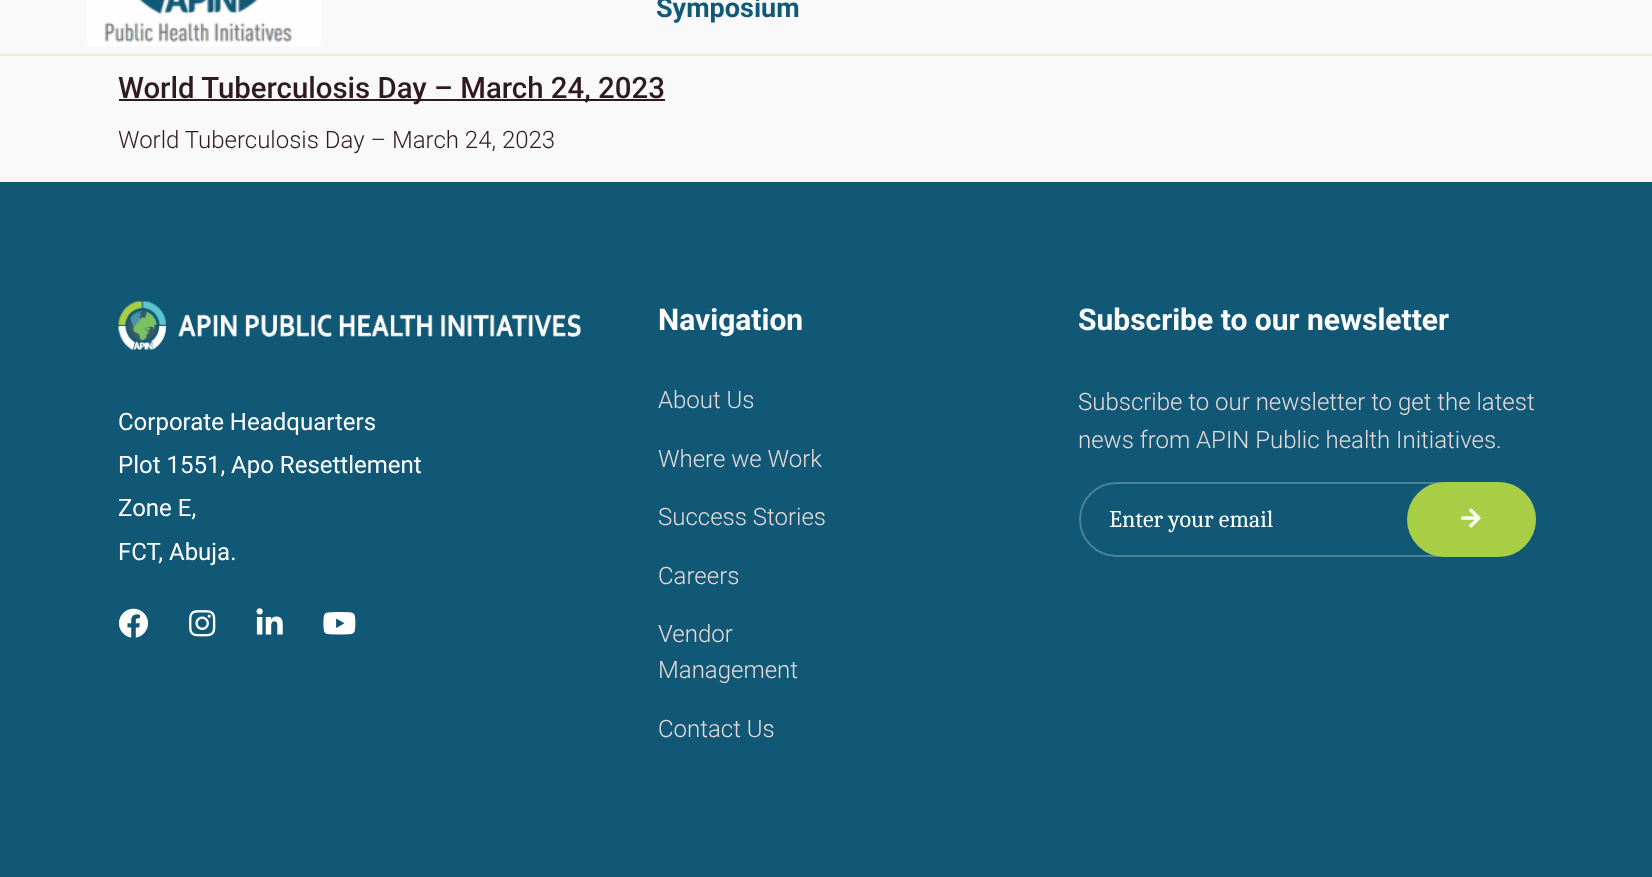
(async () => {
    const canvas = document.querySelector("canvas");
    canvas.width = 1652;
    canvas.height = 877;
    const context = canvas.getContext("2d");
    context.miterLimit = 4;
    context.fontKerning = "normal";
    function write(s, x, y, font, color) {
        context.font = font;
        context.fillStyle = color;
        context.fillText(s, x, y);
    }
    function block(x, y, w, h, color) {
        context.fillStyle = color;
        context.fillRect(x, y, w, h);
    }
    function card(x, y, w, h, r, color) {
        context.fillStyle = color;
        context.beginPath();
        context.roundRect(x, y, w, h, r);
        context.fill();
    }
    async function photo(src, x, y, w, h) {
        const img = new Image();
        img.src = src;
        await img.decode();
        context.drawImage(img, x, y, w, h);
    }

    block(0, 0, 1652, 877, "rgb(249, 249, 249)");
    block(0, 54, 1652, 2, "rgb(236, 238, 206)");
    await photo("media/1.png", 87, 0, 234, 46);
    write("Symposium", 656, 17, "bold 27px Roboto", "rgb(16, 89, 119)");
    block(119, 99, 546, 2, "rgb(48, 26, 34)");
    write("World Tuberculosis Day – March 24, 2023", 118, 98, "500 29.4px Roboto", "rgb(48, 26, 34)");
    write("World Tuberculosis Day – March 24, 2023", 118, 148, "300 24px Roboto", "rgb(48, 26, 34)");
    block(0, 182, 1652, 695, "rgb(16, 88, 118)");
    await photo("media/2.png", 118, 301, 463, 49);
    write("Corporate Headquarters", 118, 430, "24px Roboto", "rgb(255, 255, 255)");
    write("Plot 1551, Apo Resettlement", 118, 473, "24px Roboto", "rgb(255, 255, 255)");
    write("Zone E,", 118, 516, "24px Roboto", "rgb(255, 255, 255)");
    write("FCT, Abuja.", 118, 560, "24px Roboto", "rgb(255, 255, 255)");
    await photo("media/3.png", 119, 608, 29, 30);
    await photo("media/4.png", 189, 610, 27, 27);
    await photo("media/5.png", 256, 608, 27, 27);
    await photo("media/6.png", 323, 612, 33, 23);
    write("Navigation", 658, 330, "bold 30px Roboto", "rgb(255, 255, 255)");
    write("About Us", 658, 408, "300 24px Roboto", "rgb(230, 218, 216)");
    write("Where we Work", 658, 467, "300 24px Roboto", "rgb(230, 218, 216)");
    write("Success Stories", 658, 525, "300 24px Roboto", "rgb(230, 218, 216)");
    write("Careers", 658, 584, "300 24px Roboto", "rgb(230, 218, 216)");
    write("Vendor", 658, 642, "300 24px Roboto", "rgb(230, 218, 216)");
    write("Management", 658, 678, "300 24px Roboto", "rgb(230, 218, 216)");
    write("Contact Us", 658, 737, "300 24px Roboto", "rgb(230, 218, 216)");
    write("Subscribe to our newsletter", 1078, 330, "bold 30px Roboto", "rgb(255, 255, 255)");
    write("Subscribe to our newsletter to get the latest", 1078, 410, "300 24px Roboto", "rgb(230, 218, 216)");
    write("news from APIN Public health Initiatives.", 1078, 448, "300 24px Roboto", "rgb(230, 218, 216)");
    context.beginPath();
    context.roundRect(1080, 483, 455, 73, 36.5);
    context.strokeStyle = "rgb(76, 130, 152)";
    context.lineWidth = 2;
    context.stroke();
    write("Enter your email", 1109, 527, "24px Caladea", "rgb(255, 255, 255)");
    card(1407, 482, 129, 75, 37.5, "rgb(167, 206, 68)");
    await photo("media/7.png", 1461, 508, 20, 20);
})();
